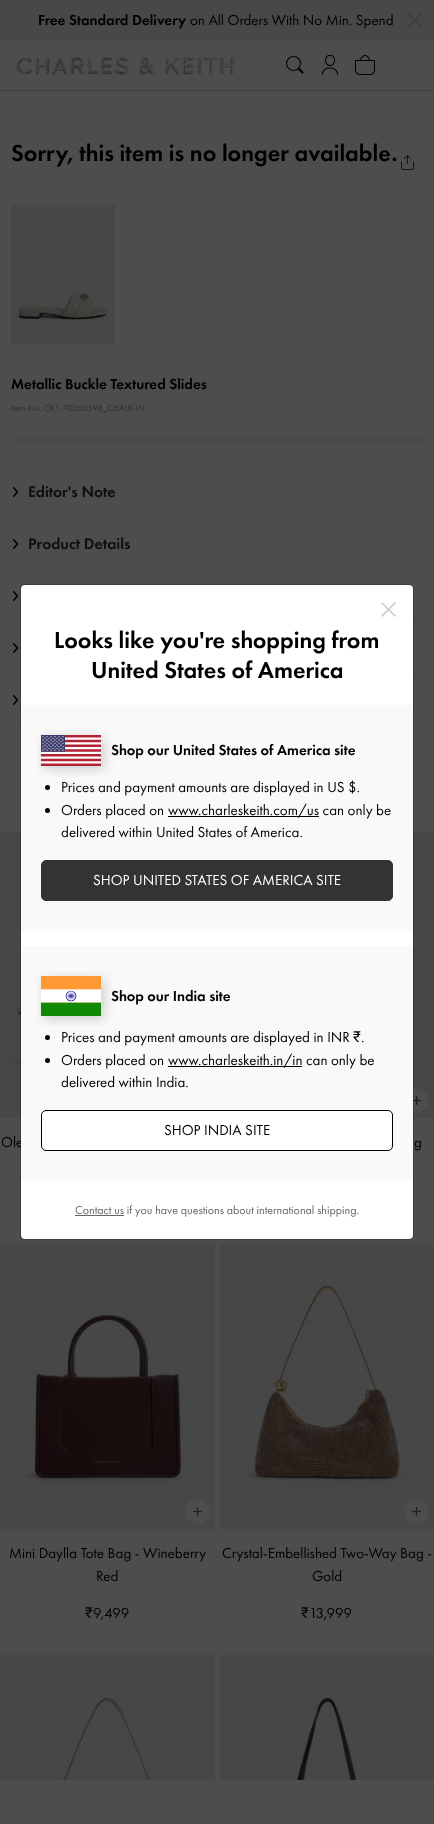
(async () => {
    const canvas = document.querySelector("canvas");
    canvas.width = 434;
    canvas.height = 1824;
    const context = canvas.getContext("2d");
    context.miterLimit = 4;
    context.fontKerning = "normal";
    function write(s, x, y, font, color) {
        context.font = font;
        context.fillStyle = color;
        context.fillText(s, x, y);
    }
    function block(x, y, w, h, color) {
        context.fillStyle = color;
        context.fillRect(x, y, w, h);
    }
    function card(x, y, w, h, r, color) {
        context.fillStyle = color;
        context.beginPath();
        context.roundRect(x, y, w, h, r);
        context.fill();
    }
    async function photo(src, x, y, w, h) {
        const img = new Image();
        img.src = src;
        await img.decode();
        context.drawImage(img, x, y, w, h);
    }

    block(0, 0, 434, 1824, "rgb(77, 77, 77)");
    block(0, 90, 434, 1, "rgb(61, 61, 61)");
    block(0, 0, 434, 40, "rgb(72, 72, 72)");
    write("Free Standard Delivery", 38, 25, "500 15px Futura PT", "rgb(0, 0, 0)");
    write("on All Orders With No Min. Spend", 190, 25, "15px Futura PT", "rgb(0, 0, 0)");
    await photo("media/1.png", 407, 13, 15, 15);
    await photo("media/2.png", 16, 57, 219, 18);
    context.beginPath();
    context.moveTo(302.5, 72.5);
    context.lineTo(299, 69);
    context.strokeStyle = "rgb(0, 0, 0)";
    context.lineWidth = 2.2;
    context.lineCap = "round";
    context.stroke();
    context.beginPath();
    context.arc(293.5, 63.5, 7, 0, Math.PI * 2);
    context.lineWidth = 1.1;
    context.stroke();
    await photo("media/3.png", 322, 55, 16, 20);
    await photo("media/4.png", 355, 55, 20, 20);
    write("Sorry, this item is no longer available.", 11, 161, "500 24px Futura PT", "rgb(0, 0, 0)");
    await photo("media/5.png", 401, 155, 13, 15);
    await photo("media/6.png", 11, 205, 104, 139);
    write("Metallic Buckle Textured Slides", 11, 389, "500 15px Futura PT", "rgb(0, 0, 0)");
    write("Item No. CK1-70060598_CHALK-IN", 11, 411, "9px Futura PT", "rgb(46, 46, 46)");
    block(11, 435, 412, 10, "rgb(74, 74, 74)");
    block(13, 465, 408, 1, "rgb(72, 72, 72)");
    await photo("media/7.png", 13, 487, 5, 10);
    write("Editor's Note", 28, 497, "500 16px Futura PT", "rgb(15, 15, 15)");
    block(13, 517, 408, 1, "rgb(72, 72, 72)");
    await photo("media/7.png", 13, 539, 5, 10);
    write("Product Details", 28, 549, "500 16px Futura PT", "rgb(15, 15, 15)");
    block(13, 569, 408, 1, "rgb(72, 72, 72)");
    await photo("media/7.png", 13, 591, 5, 10);
    block(13, 621, 408, 1, "rgb(72, 72, 72)");
    await photo("media/7.png", 13, 643, 5, 10);
    block(13, 673, 408, 1, "rgb(72, 72, 72)");
    block(13, 725, 408, 1, "rgb(72, 72, 72)");
    await photo("media/7.png", 13, 695, 5, 10);
    await photo("media/8.png", 0, 832, 21, 286);
    write("Ole", 1, 1147, "15px Futura PT", "rgb(0, 0, 0)");
    await photo("media/9.png", 413, 832, 21, 286);
    context.fillStyle = "rgb(77, 77, 77)";
    context.beginPath();
    context.arc(416.5, 1100.5, 12.5, 0, Math.PI * 2);
    context.fill();
    await photo("media/10.png", 413, 1096, 8, 9);
    write("g", 414, 1147, "15px Futura PT", "rgb(0, 0, 0)");
    await photo("media/11.png", 0, 1243, 215, 286);
    context.fillStyle = "rgb(77, 77, 77)";
    context.beginPath();
    context.arc(197.5, 1511.5, 12.5, 0, Math.PI * 2);
    context.fill();
    await photo("media/12.png", 193, 1507, 9, 9);
    write("Mini Daylla Tote Bag - Wineberry", 9, 1558, "15px Futura PT", "rgb(0, 0, 0)");
    write("Red", 96, 1581, "15px Futura PT", "rgb(0, 0, 0)");
    write("₹", 85, 1618, "15px Roboto", "rgb(0, 0, 0)");
    write("9,499", 93, 1618, "15px Futura PT", "rgb(0, 0, 0)");
    await photo("media/13.png", 220, 1243, 214, 286);
    context.fillStyle = "rgb(77, 77, 77)";
    context.beginPath();
    context.arc(416.5, 1511.5, 12.5, 0, Math.PI * 2);
    context.fill();
    await photo("media/12.png", 412, 1507, 9, 9);
    write("Crystal-Embellished Two-Way Bag -", 222, 1558, "15px Futura PT", "rgb(0, 0, 0)");
    write("Gold", 312, 1581, "15px Futura PT", "rgb(0, 0, 0)");
    write("₹", 301, 1618, "15px Roboto", "rgb(0, 0, 0)");
    write("13,999", 309, 1618, "15px Futura PT", "rgb(0, 0, 0)");
    await photo("media/14.png", 0, 1655, 215, 125);
    await photo("media/15.png", 220, 1655, 214, 125);
    card(21, 585, 392, 654, 4, "rgb(255, 255, 255)");
    context.beginPath();
    context.roundRect(20.5, 584.5, 393, 655, 4.5);
    context.strokeStyle = "rgba(0, 0, 0, 0.2)";
    context.lineWidth = 1;
    context.stroke();
    await photo("media/16.png", 381, 602, 15, 15);
    write("Looks like you're shopping from", 54, 648, "500 24px Futura PT", "rgb(0, 0, 0)");
    write("United States of America", 91, 678, "500 24px Futura PT", "rgb(0, 0, 0)");
    block(21, 705, 392, 226, "rgb(249, 249, 249)");
    write("Shop our United States of America site", 111, 755, "500 15px Futura PT", "rgb(0, 0, 0)");
    await photo("media/17.png", 36, 730, 79, 47);
    context.beginPath();
    context.arc(47.5, 787.5, 2.5, 0, Math.PI * 2);
    context.fill();
    write("Prices and payment amounts are displayed in US $.", 61, 792, "15px Futura PT", "rgb(0, 0, 0)");
    context.beginPath();
    context.arc(47.5, 810.5, 2.5, 0, Math.PI * 2);
    context.fill();
    write("Orders placed on", 61, 815, "15px Futura PT", "rgb(0, 0, 0)");
    block(168, 816, 151, 1, "rgb(0, 0, 0)");
    write("www.charleskeith.com/us can only be", 168, 815, "15px Futura PT", "rgb(0, 0, 0)");
    write("delivered within United States of America.", 61, 837, "15px Futura PT", "rgb(0, 0, 0)");
    context.fillStyle = "rgb(51, 51, 51)";
    context.beginPath();
    context.roundRect(41.5, 860.5, 351, 40, 4.5);
    context.fill();
    context.strokeStyle = "rgb(51, 51, 51)";
    context.stroke();
    write("SHOP UNITED STATES OF AMERICA SITE", 93, 885, "15px Futura PT", "rgb(255, 255, 255)");
    block(21, 946, 392, 235, "rgb(249, 249, 249)");
    write("Shop our India site", 111, 1001, "500 15px Futura PT", "rgb(0, 0, 0)");
    await photo("media/18.png", 36, 971, 79, 56);
    context.beginPath();
    context.arc(47.5, 1037.5, 2.5, 0, Math.PI * 2);
    context.fill();
    write("Prices and payment amounts are displayed in INR", 61, 1042, "15px Futura PT", "rgb(0, 0, 0)");
    write("₹", 353, 1042, "15px Roboto", "rgb(0, 0, 0)");
    write(".", 361, 1042, "15px Futura PT", "rgb(0, 0, 0)");
    context.beginPath();
    context.arc(47.5, 1060.5, 2.5, 0, Math.PI * 2);
    context.fill();
    write("Orders placed on", 61, 1065, "15px Futura PT", "rgb(0, 0, 0)");
    block(168, 1066, 134, 1, "rgb(0, 0, 0)");
    write("www.charleskeith.in/in can only be", 168, 1065, "15px Futura PT", "rgb(0, 0, 0)");
    write("delivered within India.", 61, 1087, "15px Futura PT", "rgb(0, 0, 0)");
    context.fillStyle = "rgb(255, 255, 255)";
    context.beginPath();
    context.roundRect(41.5, 1110.5, 351, 40, 4.5);
    context.fill();
    context.strokeStyle = "rgb(0, 0, 0)";
    context.stroke();
    write("SHOP INDIA SITE", 164, 1135, "15px Futura PT", "rgb(0, 0, 0)");
    block(75, 1215, 49, 1, "rgb(102, 102, 102)");
    write("Contact us if you have questions about international shipping.", 75, 1214, "12px Futura PT", "rgb(102, 102, 102)");
})();
